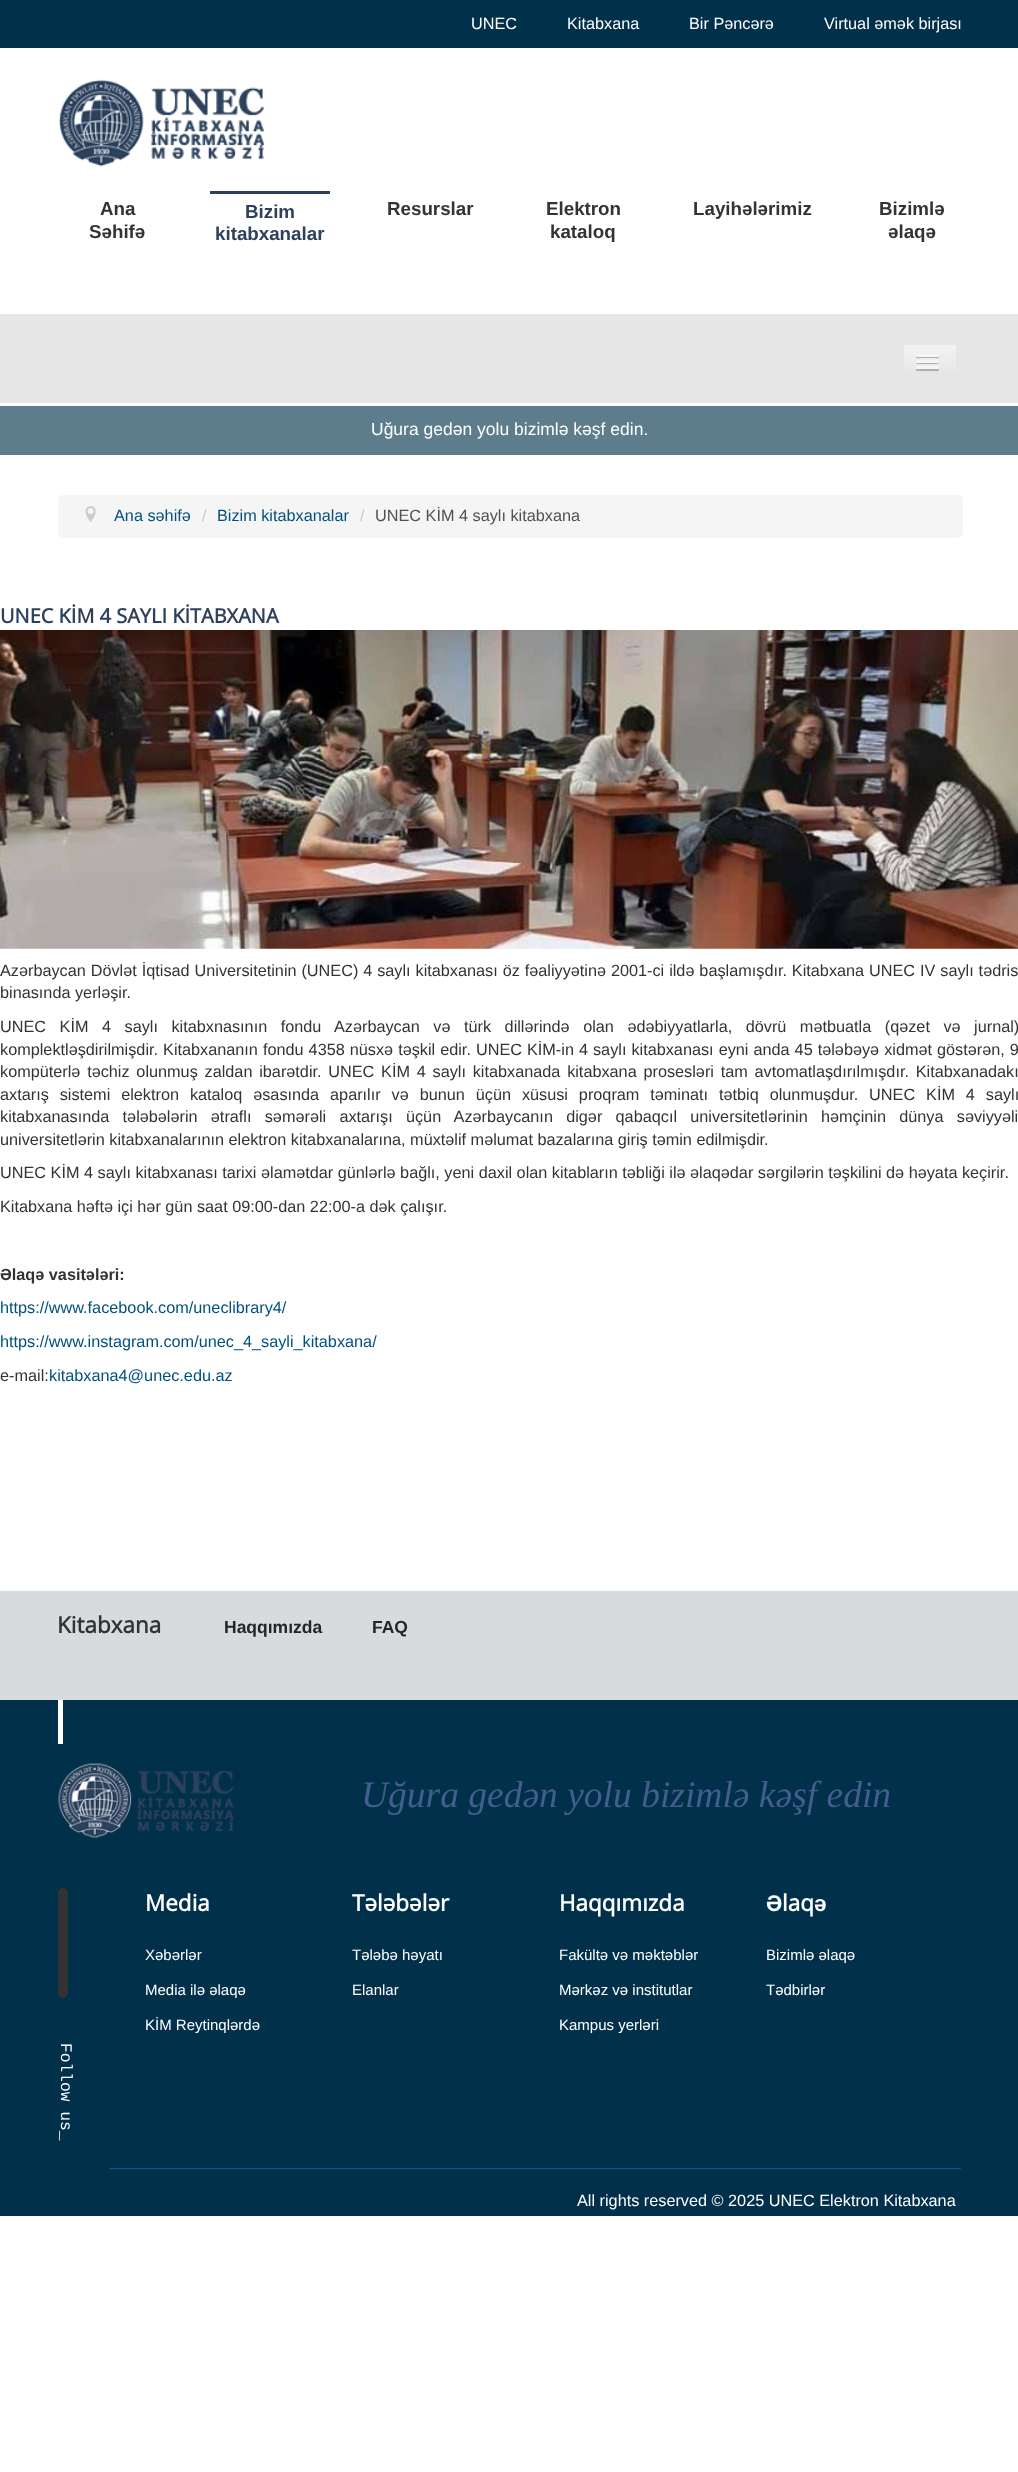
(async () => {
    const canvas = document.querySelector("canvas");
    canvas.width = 1018;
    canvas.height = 2472;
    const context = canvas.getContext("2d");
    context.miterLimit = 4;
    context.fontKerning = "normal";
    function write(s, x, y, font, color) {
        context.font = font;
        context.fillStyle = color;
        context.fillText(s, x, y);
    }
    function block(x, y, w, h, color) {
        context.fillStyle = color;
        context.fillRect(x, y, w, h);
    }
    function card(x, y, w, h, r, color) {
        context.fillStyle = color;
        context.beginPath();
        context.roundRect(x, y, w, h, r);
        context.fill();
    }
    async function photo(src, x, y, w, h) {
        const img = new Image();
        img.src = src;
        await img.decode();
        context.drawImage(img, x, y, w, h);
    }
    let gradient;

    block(0, 0, 1018, 2472, "rgb(255, 255, 255)");
    block(0, 0, 1018, 48, "rgb(0, 48, 74)");
    write("UNEC", 471, 29, "16.25px Liberation Sans", "rgb(255, 255, 255)");
    write("Kitabxana", 567, 29, "16.25px Liberation Sans", "rgb(255, 255, 255)");
    write("Bir Pəncərə", 689, 29, "16.25px Liberation Sans", "rgb(255, 255, 255)");
    write("Virtual əmək birjası", 824, 29, "16.25px Liberation Sans", "rgb(255, 255, 255)");
    await photo("media/1.png", 58, 79, 207, 88);
    write("Ana", 100, 215, "bold 18.75px Liberation Sans", "rgb(51, 51, 51)");
    write("Səhifə", 89, 238, "bold 18.75px Liberation Sans", "rgb(51, 51, 51)");
    block(210, 191, 120, 3, "rgb(45, 65, 92)");
    write("Bizim", 245, 218, "bold 18.75px Liberation Sans", "rgb(45, 65, 92)");
    write("kitabxanalar", 215, 240, "bold 18.75px Liberation Sans", "rgb(45, 65, 92)");
    write("Resurslar", 387, 215, "bold 18.75px Liberation Sans", "rgb(51, 51, 51)");
    write("Elektron", 546, 215, "bold 18.75px Liberation Sans", "rgb(51, 51, 51)");
    write("kataloq", 550, 238, "bold 18.75px Liberation Sans", "rgb(51, 51, 51)");
    write("Layihələrimiz", 693, 215, "bold 18.75px Liberation Sans", "rgb(51, 51, 51)");
    write("Bizimlə", 879, 215, "bold 18.75px Liberation Sans", "rgb(51, 51, 51)");
    write("əlaqə", 888, 238, "bold 18.75px Liberation Sans", "rgb(51, 51, 51)");
    block(0, 314, 1018, 89, "rgb(230, 230, 230)");
    gradient = context.createLinearGradient(930, 345, 930, 378);
    gradient.addColorStop(0, "rgb(242, 242, 242)");
    gradient.addColorStop(1, "rgb(230, 230, 230)");
    context.fillStyle = gradient;
    context.fillRect(904, 345, 52, 26);
    context.fillStyle = "rgb(178, 178, 178)";
    context.beginPath();
    context.moveTo(916.5, 355.5);
    context.lineTo(916, 357);
    context.bezierCurveTo(916.5, 359, 920, 358, 921, 358);
    context.lineTo(934, 358);
    context.bezierCurveTo(935, 358, 938.5, 359, 939, 357);
    context.lineTo(938.5, 355.5);
    context.bezierCurveTo(938.5, 356, 938, 356, 937.5, 356);
    context.lineTo(917.5, 356);
    context.bezierCurveTo(917, 356, 916.5, 356, 916.5, 355.5);
    context.closePath();
    context.fill();
    card(916, 354, 23, 3, 1.5, "rgb(245, 245, 245)");
    context.fillStyle = "rgb(176, 176, 176)";
    context.beginPath();
    context.moveTo(916.5, 361.5);
    context.bezierCurveTo(914, 364.5, 920.5, 364, 921, 364);
    context.lineTo(934, 364);
    context.bezierCurveTo(934.5, 364, 941, 364.5, 938.5, 361.5);
    context.bezierCurveTo(938.5, 362, 938, 362.5, 937.5, 362.5);
    context.lineTo(917.5, 362.5);
    context.bezierCurveTo(917, 362.5, 916.5, 362, 916.5, 361.5);
    context.closePath();
    context.fill();
    card(916, 360, 23, 3, 1.5, "rgb(245, 245, 245)");
    context.fillStyle = "rgb(175, 175, 175)";
    context.beginPath();
    context.moveTo(916.5, 368.5);
    context.bezierCurveTo(915.5, 369, 916, 370.5, 917, 371);
    context.lineTo(934, 371);
    context.bezierCurveTo(935, 371, 938.5, 372, 939, 370);
    context.bezierCurveTo(939, 369.5, 939, 368.5, 938.5, 368.5);
    context.bezierCurveTo(937.5, 369, 917.5, 369, 916.5, 368.5);
    context.closePath();
    context.fill();
    card(916, 366, 23, 3, 1.5, "rgb(245, 245, 245)");
    block(0, 406, 1018, 49, "rgb(93, 125, 141)");
    write("Uğura gedən yolu bizimlə kəşf edin.", 371, 435, "17.5px Liberation Sans", "rgb(255, 255, 255)");
    card(58, 495, 905, 43, 5, "rgb(245, 245, 245)");
    await photo("media/2.png", 85, 506, 11, 16);
    write("Ana səhifə", 114, 521, "16.25px Liberation Sans", "rgb(0, 81, 127)");
    write("/", 202, 521, "16.25px Liberation Sans", "rgb(204, 204, 204)");
    write("Bizim kitabxanalar", 217, 521, "16.25px Liberation Sans", "rgb(0, 81, 127)");
    write("/", 360, 521, "16.25px Liberation Sans", "rgb(204, 204, 204)");
    write("UNEC KİM 4 saylı kitabxana", 375, 521, "16.25px Liberation Sans", "rgb(81, 81, 81)");
    write("UNEC KİM 4 SAYLI KİTABXANA", 0, 623, "bold 20px Open Sans", "rgb(45, 65, 92)");
    await photo("media/3.png", 0, 630, 1018, 319);
    context.wordSpacing = "0.4px";
    write("Azərbaycan Dövlət İqtisad Universitetinin (UNEC) 4 saylı kitabxanası öz fəaliyyətinə 2001-ci ildə başlamışdır. Kitabxana UNEC IV saylı tədris", 0, 976, "16.25px Liberation Sans", "rgb(51, 51, 51)");
    context.wordSpacing = "0px";
    write("binasında yerləşir.", 0, 998, "16.25px Liberation Sans", "rgb(51, 51, 51)");
    context.wordSpacing = "9px";
    write("UNEC KİM 4 saylı kitabxnasının fondu Azərbaycan və türk dillərində olan ədəbiyyatlarla, dövrü mətbuatla (qəzet və jurnal)", 0, 1032, "16.25px Liberation Sans", "rgb(51, 51, 51)");
    context.wordSpacing = "0.5px";
    write("komplektləşdirilmişdir. Kitabxananın fondu 4358 nüsxə təşkil edir. UNEC KİM-in 4 saylı kitabxanası eyni anda 45 tələbəyə xidmət göstərən, 9", 0, 1055, "16.25px Liberation Sans", "rgb(51, 51, 51)");
    context.wordSpacing = "2.25px";
    write("kompüterlə təchiz olunmuş zaldan ibarətdir. UNEC KİM 4 saylı kitabxanada kitabxana prosesləri tam avtomatlaşdırılmışdır. Kitabxanadakı", 0, 1077, "16.25px Liberation Sans", "rgb(51, 51, 51)");
    context.wordSpacing = "6.4px";
    write("axtarış sistemi elektron kataloq əsasında aparılır və bunun üçün xüsusi proqram təminatı tətbiq olunmuşdur. UNEC KİM 4 saylı", 0, 1100, "16.25px Liberation Sans", "rgb(51, 51, 51)");
    context.wordSpacing = "8.75px";
    write("kitabxanasında tələbələrin ətraflı səmərəli axtarışı üçün Azərbaycanın digər qabaqcıl universitetlərinin həmçinin dünya səviyyəli", 0, 1122, "16.25px Liberation Sans", "rgb(51, 51, 51)");
    context.wordSpacing = "0px";
    write("universitetlərin kitabxanalarının elektron kitabxanalarına, müxtəlif məlumat bazalarına giriş təmin edilmişdir.", 0, 1145, "16.25px Liberation Sans", "rgb(51, 51, 51)");
    write("UNEC KİM 4 saylı kitabxanası tarixi əlamətdar günlərlə bağlı, yeni daxil olan kitabların təbliği ilə əlaqədar sərgilərin təşkilini də həyata keçirir.", 0, 1178, "16.25px Liberation Sans", "rgb(51, 51, 51)");
    write("Kitabxana həftə içi hər gün saat 09:00-dan 22:00-a dək çalışır.", 0, 1212, "16.25px Liberation Sans", "rgb(51, 51, 51)");
    write("Əlaqə vasitələri:", 0, 1280, "bold 16.25px Liberation Sans", "rgb(51, 51, 51)");
    write("https://www.facebook.com/uneclibrary4/", 0, 1313, "16.25px Liberation Sans", "rgb(0, 81, 127)");
    write("https://www.instagram.com/unec_4_sayli_kitabxana/", 0, 1347, "16.25px Liberation Sans", "rgb(0, 81, 127)");
    write("e-mail:", 0, 1381, "16.25px Liberation Sans", "rgb(51, 51, 51)");
    write("kitabxana4@unec.edu.az", 49, 1381, "16.25px Liberation Sans", "rgb(0, 81, 127)");
    block(0, 1700, 1018, 516, "rgb(0, 48, 74)");
    block(0, 1591, 1018, 109, "rgb(216, 219, 221)");
    write("Kitabxana", 57, 1633, "bold 22.5px Open Sans", "rgb(51, 51, 51)");
    write("Haqqımızda", 224, 1633, "bold 17.5px Liberation Sans", "rgb(37, 37, 37)");
    write("FAQ", 372, 1633, "bold 17.5px Liberation Sans", "rgb(37, 37, 37)");
    block(58, 1700, 5, 44, "rgb(255, 255, 255)");
    await photo("media/4.png", 58, 1763, 176, 75);
    write("Uğura gedən yolu bizimlə kəşf edin", 361, 1807, "italic 37.5px Liberation Serif", "rgb(67, 93, 142)");
    context.fillStyle = "rgb(51, 51, 51)";
    context.beginPath();
    context.roundRect(58.5, 1888.5, 9, 34, 4.5);
    context.fill();
    context.strokeStyle = "rgb(51, 51, 51)";
    context.stroke();
    context.beginPath();
    context.roundRect(58.5, 1913.5, 9, 34, 4.5);
    context.fill();
    context.stroke();
    context.beginPath();
    context.roundRect(58.5, 1938.5, 9, 34, 4.5);
    context.fill();
    context.stroke();
    context.beginPath();
    context.roundRect(58.5, 1963.5, 9, 34, 4.5);
    context.fill();
    context.stroke();
    context.font = "16.25px Liberation Mono";
    context.fillStyle = "rgb(255, 255, 255)";
    context.save();
    context.translate(61, 2043);
    context.rotate(90 * Math.PI / 180);
    context.fillText("Follow us_", 0, 0);
    context.restore();
    write("Media", 145, 1911, "bold 22.5px Open Sans", "rgb(255, 255, 255)");
    write("Xəbərlər", 145, 1960, "15px Liberation Sans", "rgb(255, 255, 255)");
    write("Media ilə əlaqə", 145, 1995, "15px Liberation Sans", "rgb(255, 255, 255)");
    write("KİM Reytinqlərdə", 145, 2030, "15px Liberation Sans", "rgb(255, 255, 255)");
    write("Tələbələr", 352, 1911, "bold 22.5px Open Sans", "rgb(255, 255, 255)");
    write("Tələbə həyatı", 352, 1960, "15px Liberation Sans", "rgb(255, 255, 255)");
    write("Elanlar", 352, 1995, "15px Liberation Sans", "rgb(255, 255, 255)");
    write("Haqqımızda", 559, 1911, "bold 22.5px Open Sans", "rgb(255, 255, 255)");
    write("Fakültə və məktəblər", 559, 1960, "15px Liberation Sans", "rgb(255, 255, 255)");
    write("Mərkəz və institutlar", 559, 1995, "15px Liberation Sans", "rgb(255, 255, 255)");
    write("Kampus yerləri", 559, 2030, "15px Liberation Sans", "rgb(255, 255, 255)");
    write("Ə", 766, 1911, "bold 22.5px Liberation Sans", "rgb(255, 255, 255)");
    write("laq", 782, 1911, "bold 22.5px Open Sans", "rgb(255, 255, 255)");
    write("ə", 814, 1911, "bold 22.5px Liberation Sans", "rgb(255, 255, 255)");
    write("Bizimlə əlaqə", 766, 1960, "15px Liberation Sans", "rgb(255, 255, 255)");
    write("Tədbirlər", 766, 1995, "15px Liberation Sans", "rgb(255, 255, 255)");
    block(109, 2168, 852, 1, "rgb(0, 92, 141)");
    write("All rights reserved © 2025 UNEC Elektron Kitabxana", 577, 2206, "16.25px Liberation Sans", "rgb(255, 255, 255)");
})();
